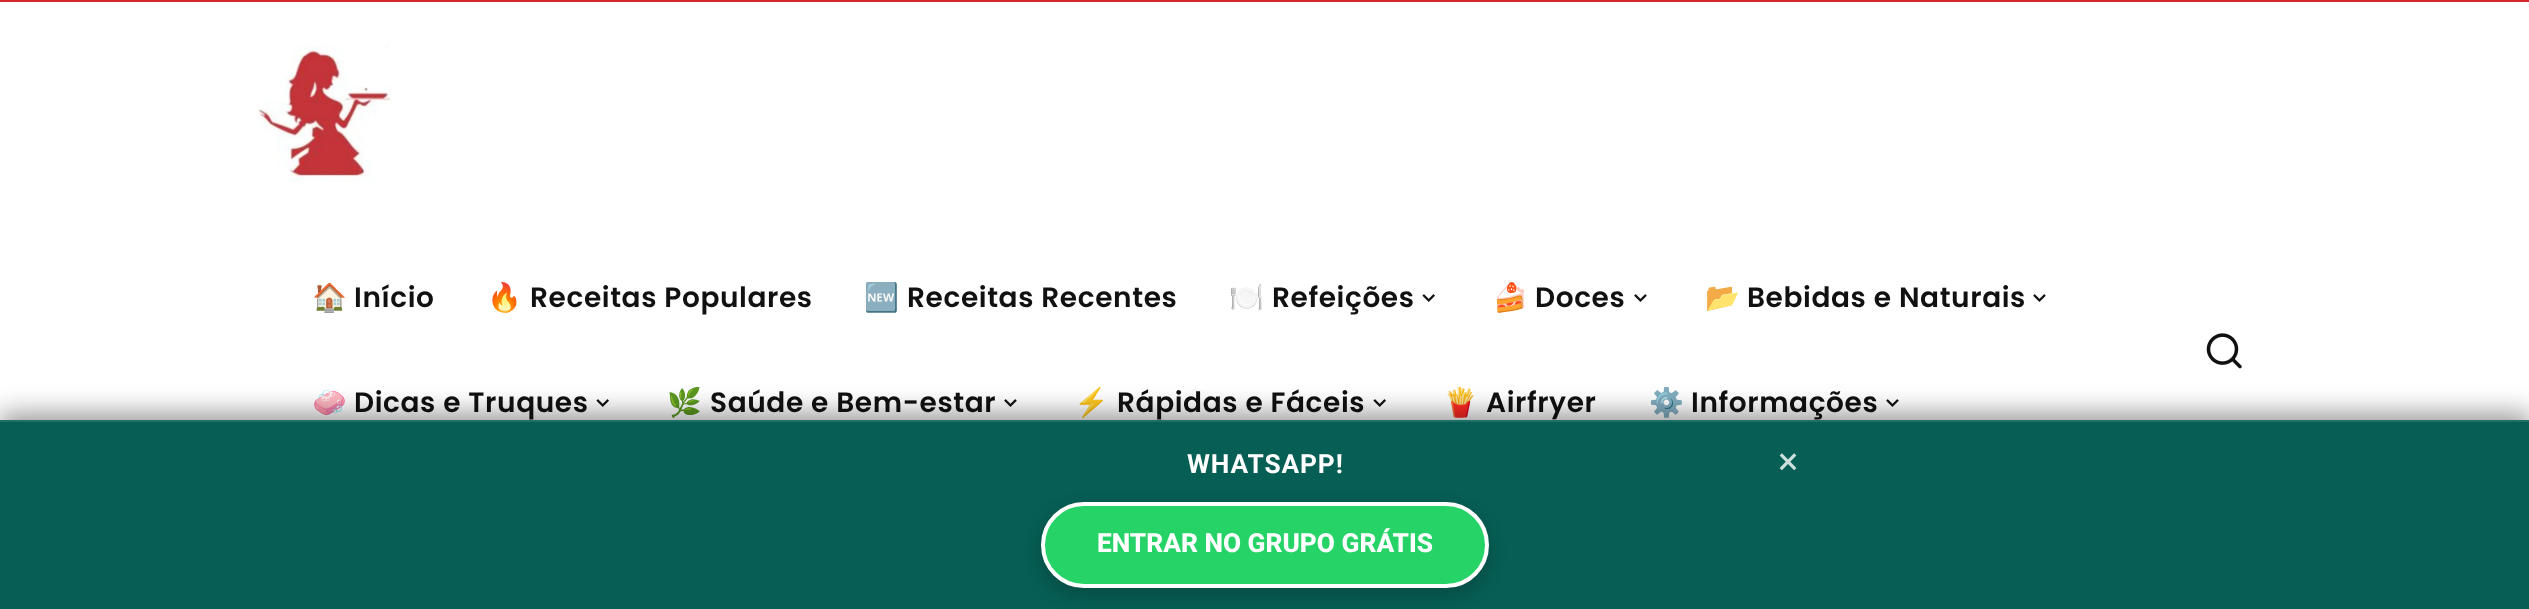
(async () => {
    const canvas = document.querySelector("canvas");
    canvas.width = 2529;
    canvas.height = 609;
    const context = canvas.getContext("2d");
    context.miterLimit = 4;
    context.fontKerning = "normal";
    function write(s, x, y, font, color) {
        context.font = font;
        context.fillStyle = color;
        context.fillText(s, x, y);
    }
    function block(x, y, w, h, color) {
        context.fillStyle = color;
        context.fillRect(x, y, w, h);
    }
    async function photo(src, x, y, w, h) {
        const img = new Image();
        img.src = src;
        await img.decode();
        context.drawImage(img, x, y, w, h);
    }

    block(0, 0, 2529, 609, "rgb(255, 255, 255)");
    block(0, 0, 2529, 2, "rgb(214, 40, 40)");
    await photo("media/1.png", 251, 45, 140, 138);
    context.letterSpacing = "0.6px";
    write("🏠", 312, 307, "bold 28px Noto Color Emoji", "rgb(17, 17, 17)");
    write("Início", 354, 307, "600 28px Poppins", "rgb(17, 17, 17)");
    write("🔥", 487, 307, "bold 28px Noto Color Emoji", "rgb(17, 17, 17)");
    write("Receitas Populares", 530, 307, "600 28px Poppins", "rgb(17, 17, 17)");
    write("🆕", 864, 307, "bold 28px Noto Color Emoji", "rgb(17, 17, 17)");
    write("Receitas Recentes", 907, 307, "600 28px Poppins", "rgb(17, 17, 17)");
    write("🍽️", 1229, 307, "bold 28px Noto Color Emoji", "rgb(17, 17, 17)");
    write("Refeições", 1272, 307, "600 28px Poppins", "rgb(17, 17, 17)");
    await photo("media/2.png", 1422, 294, 13, 8);
    write("🍰", 1493, 307, "bold 28px Noto Color Emoji", "rgb(17, 17, 17)");
    write("Doces", 1535, 307, "600 28px Poppins", "rgb(17, 17, 17)");
    await photo("media/3.png", 1634, 294, 13, 8);
    write("📂", 1705, 307, "bold 28px Noto Color Emoji", "rgb(17, 17, 17)");
    write("Bebidas e Naturais", 1747, 307, "600 28px Poppins", "rgb(17, 17, 17)");
    await photo("media/3.png", 2033, 294, 13, 8);
    write("🧼", 312, 412, "bold 28px Noto Color Emoji", "rgb(17, 17, 17)");
    write("Dicas e Truques", 354, 412, "600 28px Poppins", "rgb(17, 17, 17)");
    await photo("media/2.png", 596, 399, 13, 8);
    write("🌿", 667, 412, "bold 28px Noto Color Emoji", "rgb(17, 17, 17)");
    write("Saúde e Bem-estar", 710, 412, "600 28px Poppins", "rgb(17, 17, 17)");
    await photo("media/3.png", 1004, 399, 13, 8);
    write("⚡", 1074, 412, "bold 28px Noto Color Emoji", "rgb(17, 17, 17)");
    write("Rápidas e Fáceis", 1117, 412, "600 28px Poppins", "rgb(17, 17, 17)");
    await photo("media/2.png", 1373, 399, 13, 8);
    write("🍟", 1443, 412, "bold 28px Noto Color Emoji", "rgb(17, 17, 17)");
    write("Airfryer", 1486, 412, "600 28px Poppins", "rgb(17, 17, 17)");
    write("⚙️", 1649, 412, "bold 28px Noto Color Emoji", "rgb(17, 17, 17)");
    write("Informações", 1691, 412, "600 28px Poppins", "rgb(17, 17, 17)");
    await photo("media/3.png", 1886, 399, 13, 8);
    await photo("media/4.png", 2206, 333, 36, 36);
    context.fillStyle = "rgba(0, 0, 0, 0.4)";
    context.filter = "blur(13px)";
    context.beginPath();
    context.rect(0, 413, 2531, 189);
    context.fill();
    context.filter = "none";
    block(0, 422, 2529, 187, "rgb(7, 94, 84)");
    block(0, 420, 2529, 2, "rgb(32, 110, 101)");
    context.letterSpacing = "0.9px";
    write("WHATSAPP!", 1187, 473, "bold 26.25px Roboto", "rgb(255, 255, 255)");
    context.letterSpacing = "0px";
    write("×", 1778, 474, "38px Roboto", "rgb(205, 223, 221)");
    context.fillStyle = "rgba(0, 0, 0, 0.2)";
    context.filter = "blur(9px)";
    context.beginPath();
    context.roundRect(1041, 509, 448, 86, 43);
    context.fill();
    context.filter = "none";
    context.fillStyle = "rgb(37, 211, 102)";
    context.beginPath();
    context.roundRect(1043, 504, 444, 82, 41);
    context.fill();
    context.strokeStyle = "rgb(255, 255, 255)";
    context.lineWidth = 4;
    context.stroke();
    write("ENTRAR NO GRUPO GRÁTIS", 1097, 552, "800 26.25px Roboto", "rgb(255, 255, 255)");
})();
